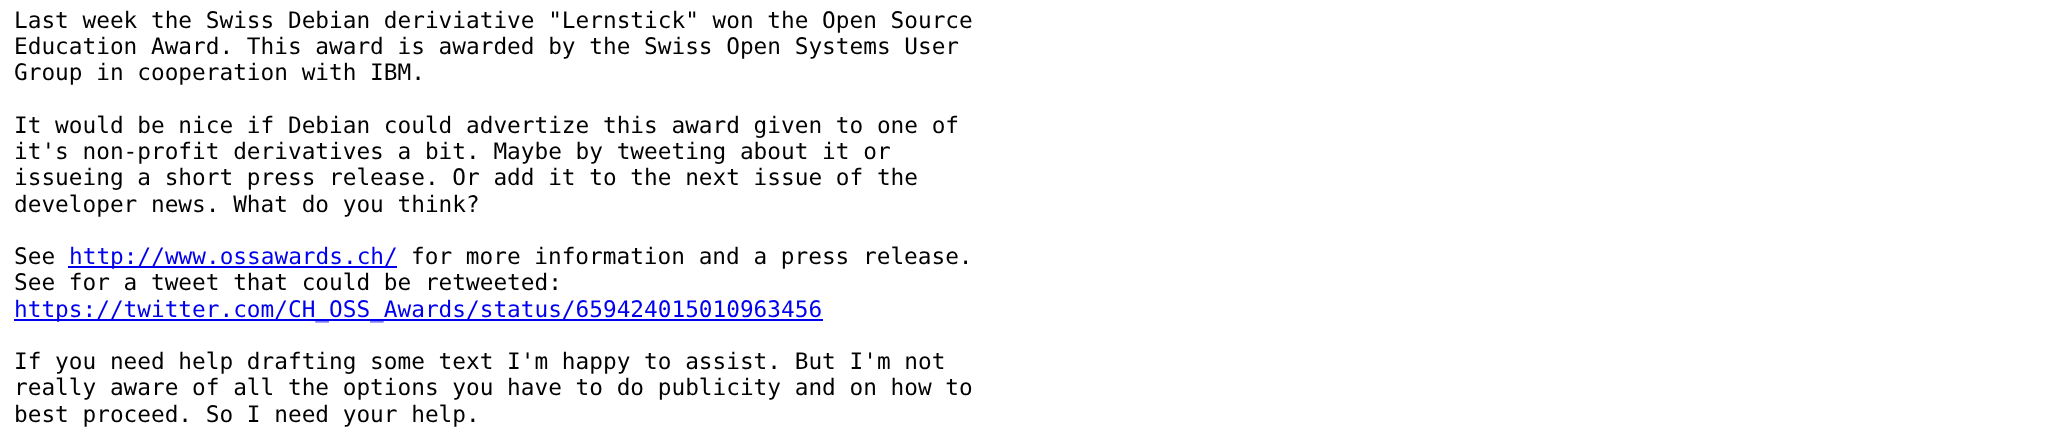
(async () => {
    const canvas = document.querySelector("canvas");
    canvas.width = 2063;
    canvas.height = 433;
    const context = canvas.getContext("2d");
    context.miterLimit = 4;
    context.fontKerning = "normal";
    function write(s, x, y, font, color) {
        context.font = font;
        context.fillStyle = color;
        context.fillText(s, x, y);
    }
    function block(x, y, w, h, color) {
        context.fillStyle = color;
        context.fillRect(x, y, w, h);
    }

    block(0, 0, 2063, 433, "rgb(255, 255, 255)");
    write("Last week the Swiss Debian deriviative \"Lernstick\" won the Open Source", 14, 28, "22.75px DejaVu Sans Mono", "rgb(0, 0, 0)");
    write("Education Award. This award is awarded by the Swiss Open Systems User", 14, 54, "22.75px DejaVu Sans Mono", "rgb(0, 0, 0)");
    write("Group in cooperation with IBM.", 14, 80, "22.75px DejaVu Sans Mono", "rgb(0, 0, 0)");
    write("It would be nice if Debian could advertize this award given to one of", 14, 133, "22.75px DejaVu Sans Mono", "rgb(0, 0, 0)");
    write("it's non-profit derivatives a bit. Maybe by tweeting about it or", 14, 159, "22.75px DejaVu Sans Mono", "rgb(0, 0, 0)");
    write("issueing a short press release. Or add it to the next issue of the", 14, 185, "22.75px DejaVu Sans Mono", "rgb(0, 0, 0)");
    write("developer news. What do you think?", 14, 212, "22.75px DejaVu Sans Mono", "rgb(0, 0, 0)");
    write("See", 14, 264, "22.75px DejaVu Sans Mono", "rgb(0, 0, 0)");
    block(68, 266, 329, 2, "rgb(0, 0, 238)");
    write("http://www.ossawards.ch/", 69, 264, "22.75px DejaVu Sans Mono", "rgb(0, 0, 238)");
    write("for more information and a press release.", 411, 264, "22.75px DejaVu Sans Mono", "rgb(0, 0, 0)");
    write("See for a tweet that could be retweeted:", 14, 290, "22.75px DejaVu Sans Mono", "rgb(0, 0, 0)");
    block(14, 319, 809, 2, "rgb(0, 0, 238)");
    write("https://twitter.com/CH_OSS_Awards/status/659424015010963456", 14, 317, "22.75px DejaVu Sans Mono", "rgb(0, 0, 238)");
    write("If you need help drafting some text I'm happy to assist. But I'm not", 14, 369, "22.75px DejaVu Sans Mono", "rgb(0, 0, 0)");
    write("really aware of all the options you have to do publicity and on how to", 14, 395, "22.75px DejaVu Sans Mono", "rgb(0, 0, 0)");
    write("best proceed. So I need your help.", 14, 422, "22.75px DejaVu Sans Mono", "rgb(0, 0, 0)");
})();
